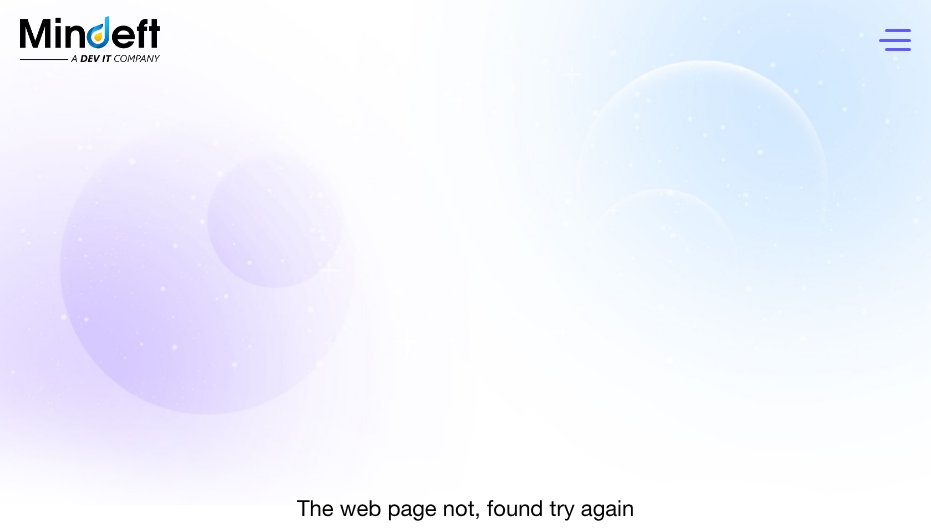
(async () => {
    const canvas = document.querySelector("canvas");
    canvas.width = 931;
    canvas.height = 532;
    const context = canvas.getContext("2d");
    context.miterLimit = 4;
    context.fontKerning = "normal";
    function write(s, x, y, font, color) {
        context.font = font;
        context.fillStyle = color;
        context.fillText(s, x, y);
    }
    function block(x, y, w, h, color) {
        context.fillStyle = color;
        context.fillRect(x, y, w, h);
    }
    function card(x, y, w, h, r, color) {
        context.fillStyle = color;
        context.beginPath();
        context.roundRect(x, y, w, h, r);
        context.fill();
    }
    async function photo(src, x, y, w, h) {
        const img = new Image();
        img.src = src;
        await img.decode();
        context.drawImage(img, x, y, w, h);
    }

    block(0, 0, 931, 532, "rgb(255, 255, 255)");
    await photo("media/2.png", 0, 0, 931, 505);
    await photo("media/1.png", 20, 16, 140, 46);
    card(885, 29, 26, 3, 1.5, "rgb(99, 91, 255)");
    card(879, 39, 32, 3, 1.5, "rgb(99, 91, 255)");
    card(885, 48, 26, 3, 1.5, "rgb(99, 91, 255)");
    write("The web page not, found try again", 297, 516, "22px Helvetica Neue", "rgb(0, 0, 0)");
})();
